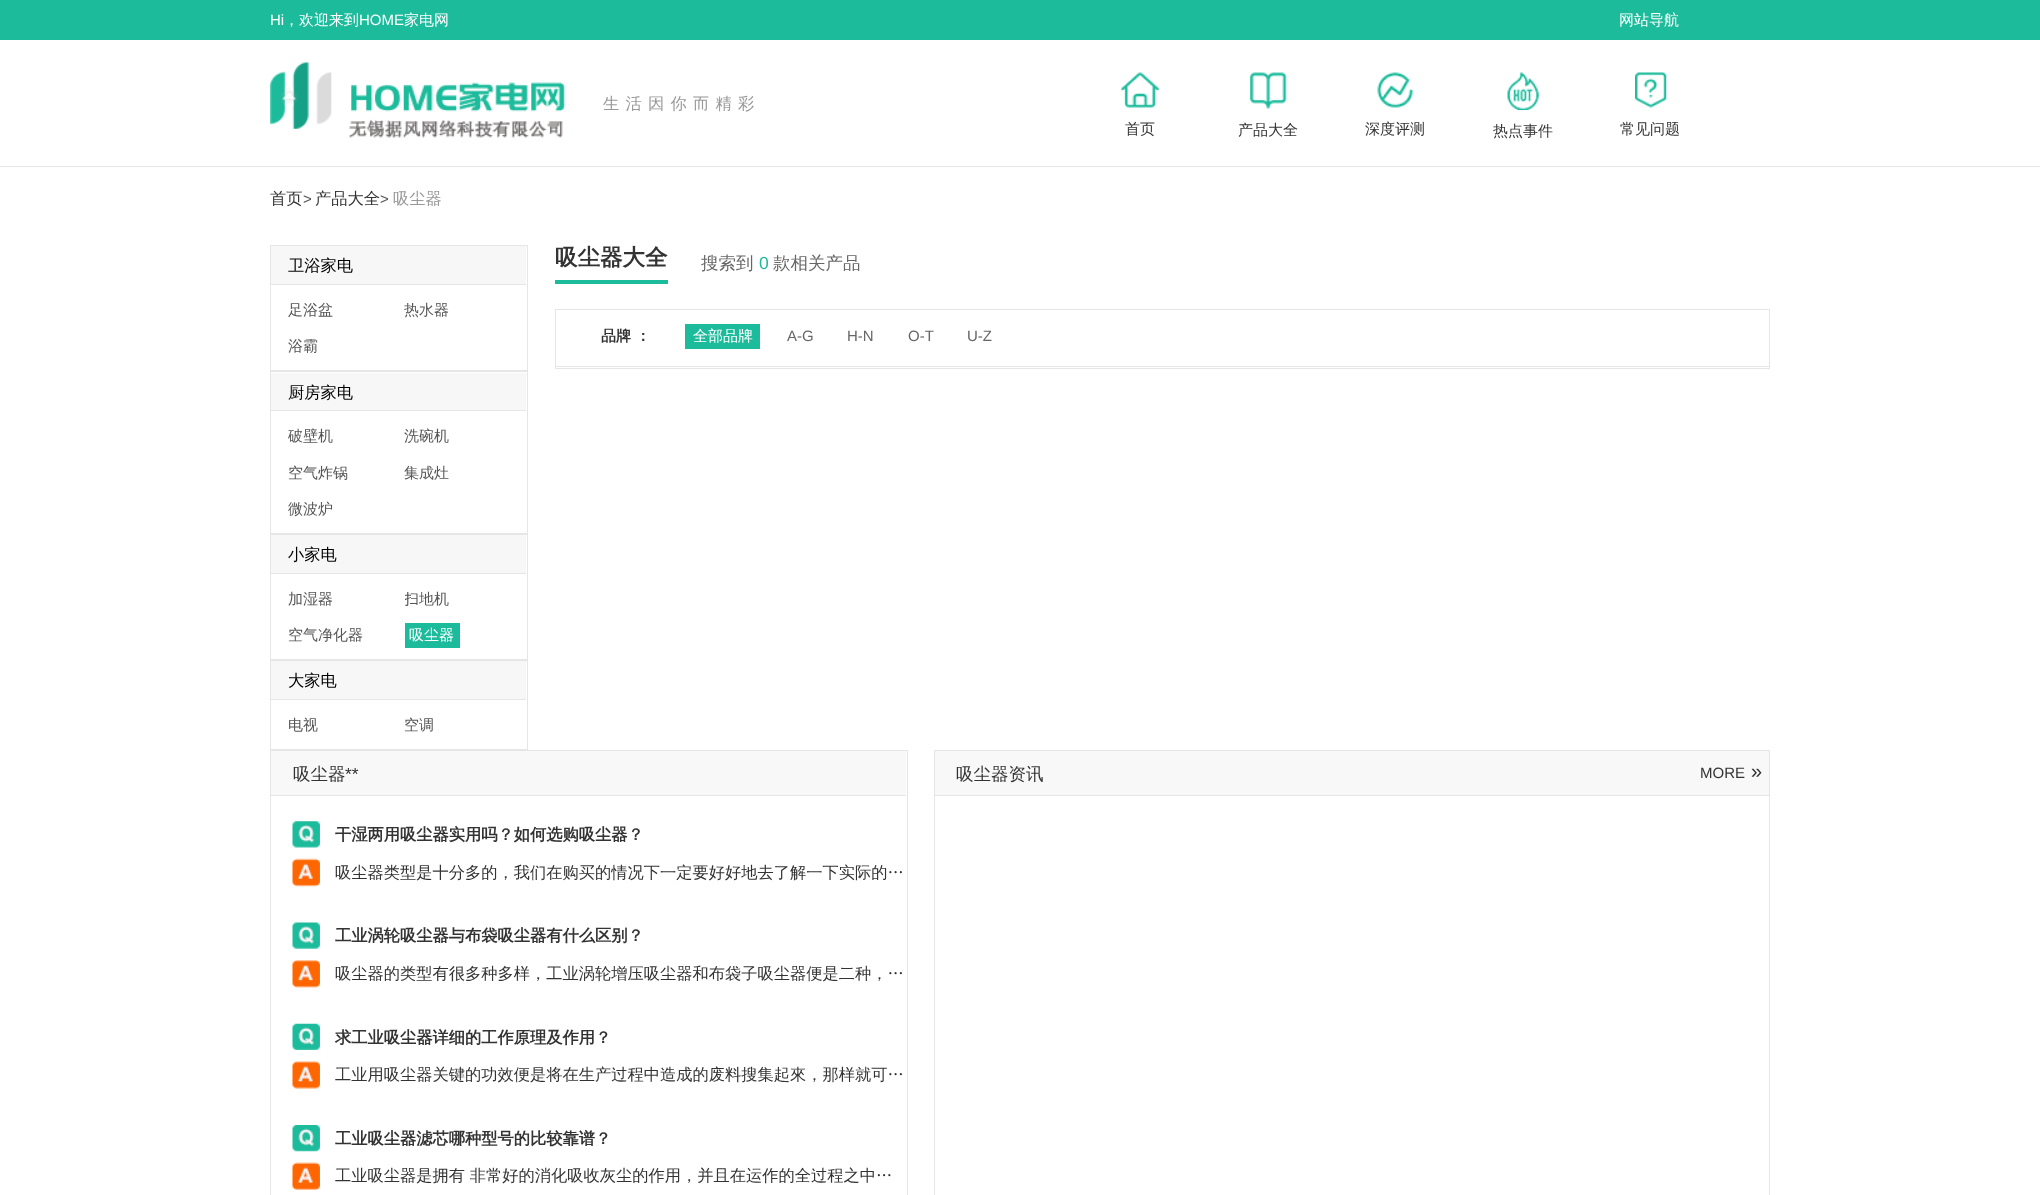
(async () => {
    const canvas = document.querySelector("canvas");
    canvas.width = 2040;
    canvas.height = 1195;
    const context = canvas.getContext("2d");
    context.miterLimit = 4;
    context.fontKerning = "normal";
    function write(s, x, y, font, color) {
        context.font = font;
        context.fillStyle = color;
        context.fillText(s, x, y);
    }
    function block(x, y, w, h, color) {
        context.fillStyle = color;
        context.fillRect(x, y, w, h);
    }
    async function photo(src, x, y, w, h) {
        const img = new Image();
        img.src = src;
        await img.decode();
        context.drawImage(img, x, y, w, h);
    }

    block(0, 0, 2040, 1195, "rgb(255, 255, 255)");
    block(0, 0, 2040, 40, "rgb(28, 187, 155)");
    write("Hi", 270, 25, "15px Liberation Sans", "rgb(255, 255, 255)");
    write("，欢迎来到", 284, 25, "500 15px WenQuanYi Zen Hei", "rgb(255, 255, 255)");
    write("HOME", 359, 25, "15px Liberation Sans", "rgb(255, 255, 255)");
    write("家电网", 404, 25, "500 15px WenQuanYi Zen Hei", "rgb(255, 255, 255)");
    write("网站导航", 1619, 25, "500 15px WenQuanYi Zen Hei", "rgb(255, 255, 255)");
    block(0, 166, 2040, 1, "rgb(230, 230, 230)");
    await photo("media/1.png", 270, 62, 295, 76);
    context.letterSpacing = "6.25px";
    write("生活因你而精彩", 603, 109, "500 16.25px WenQuanYi Zen Hei", "rgb(153, 153, 153)");
    await photo("media/2.png", 1121, 72, 38, 36);
    context.letterSpacing = "0px";
    write("首页", 1125, 134, "500 15px WenQuanYi Zen Hei", "rgb(51, 51, 51)");
    await photo("media/3.png", 1250, 72, 37, 37);
    write("产品大全", 1238, 135, "500 15px WenQuanYi Zen Hei", "rgb(51, 51, 51)");
    await photo("media/4.png", 1377, 72, 36, 36);
    write("深度评测", 1365, 134, "500 15px WenQuanYi Zen Hei", "rgb(51, 51, 51)");
    await photo("media/5.png", 1507, 72, 32, 38);
    write("热点事件", 1493, 136, "500 15px WenQuanYi Zen Hei", "rgb(51, 51, 51)");
    await photo("media/6.png", 1635, 72, 32, 36);
    write("常见问题", 1620, 134, "500 15px WenQuanYi Zen Hei", "rgb(51, 51, 51)");
    write("首页", 270, 204, "500 16.25px WenQuanYi Zen Hei", "rgb(51, 51, 51)");
    write(">", 303, 204, "15px Liberation Sans", "rgb(85, 85, 85)");
    write("产品大全", 315, 204, "500 16.25px WenQuanYi Zen Hei", "rgb(51, 51, 51)");
    write(">", 380, 204, "15px Liberation Sans", "rgb(85, 85, 85)");
    write("吸尘器", 393, 204, "500 16.25px WenQuanYi Zen Hei", "rgb(153, 153, 153)");
    context.strokeStyle = "rgb(230, 230, 230)";
    context.strokeRect(270.5, 245.5, 257, 125);
    block(271, 246, 255, 38, "rgb(247, 247, 247)");
    block(271, 284, 255, 1, "rgb(230, 230, 230)");
    write("卫浴家电", 288, 271, "500 16.25px WenQuanYi Zen Hei", "rgb(0, 0, 0)");
    write("足浴盆", 288, 315, "500 15px WenQuanYi Zen Hei", "rgb(85, 85, 85)");
    write("热水器", 404, 315, "500 15px WenQuanYi Zen Hei", "rgb(85, 85, 85)");
    write("浴霸", 288, 351, "500 15px WenQuanYi Zen Hei", "rgb(85, 85, 85)");
    context.strokeRect(270.5, 371.5, 257, 162);
    block(271, 373, 255, 37, "rgb(247, 247, 247)");
    block(271, 410, 255, 1, "rgb(230, 230, 230)");
    write("厨房家电", 288, 398, "500 16.25px WenQuanYi Zen Hei", "rgb(0, 0, 0)");
    write("破壁机", 288, 441, "500 15px WenQuanYi Zen Hei", "rgb(85, 85, 85)");
    write("洗碗机", 404, 441, "500 15px WenQuanYi Zen Hei", "rgb(85, 85, 85)");
    write("空气炸锅", 288, 478, "500 15px WenQuanYi Zen Hei", "rgb(85, 85, 85)");
    write("集成灶", 404, 478, "500 15px WenQuanYi Zen Hei", "rgb(85, 85, 85)");
    write("微波炉", 288, 514, "500 15px WenQuanYi Zen Hei", "rgb(85, 85, 85)");
    context.strokeRect(270.5, 534.5, 257, 125);
    block(271, 535, 255, 38, "rgb(247, 247, 247)");
    block(271, 573, 255, 1, "rgb(230, 230, 230)");
    write("小家电", 288, 560, "500 16.25px WenQuanYi Zen Hei", "rgb(0, 0, 0)");
    write("加湿器", 288, 604, "500 15px WenQuanYi Zen Hei", "rgb(85, 85, 85)");
    context.save();
    context.beginPath();
    context.rect(405, 586, 116, 25);
    context.clip();
    write("扫地机", 404, 604, "500 15px WenQuanYi Zen Hei", "rgb(85, 85, 85)");
    context.restore();
    write("空气净化器", 288, 640, "500 15px WenQuanYi Zen Hei", "rgb(85, 85, 85)");
    block(405, 623, 55, 25, "rgb(28, 187, 155)");
    write("吸尘器", 409, 640, "500 15px WenQuanYi Zen Hei", "rgb(255, 255, 255)");
    context.strokeRect(270.5, 660.5, 257, 89);
    block(271, 661, 255, 38, "rgb(247, 247, 247)");
    block(271, 699, 255, 1, "rgb(230, 230, 230)");
    write("大家电", 288, 686, "500 16.25px WenQuanYi Zen Hei", "rgb(0, 0, 0)");
    write("电视", 288, 730, "500 15px WenQuanYi Zen Hei", "rgb(85, 85, 85)");
    write("空调", 404, 730, "500 15px WenQuanYi Zen Hei", "rgb(85, 85, 85)");
    block(555, 280, 113, 4, "rgb(28, 187, 155)");
    write("吸尘器大全", 555, 265, "bold 22.5px WenQuanYi Zen Hei", "rgb(51, 51, 51)");
    write("搜索到", 701, 269, "500 17.5px WenQuanYi Zen Hei", "rgb(102, 102, 102)");
    write("0", 759, 269, "17.5px Liberation Sans", "rgb(28, 187, 155)");
    write("款相关产品", 773, 269, "500 17.5px WenQuanYi Zen Hei", "rgb(102, 102, 102)");
    context.strokeRect(555.5, 309.5, 1214, 59);
    block(556, 366, 1213, 1, "rgb(230, 230, 230)");
    write("品牌 ：", 601, 341, "bold 15px WenQuanYi Zen Hei", "rgb(51, 51, 51)");
    block(685, 324, 75, 25, "rgb(28, 187, 155)");
    write("全部品牌", 693, 341, "500 15px WenQuanYi Zen Hei", "rgb(255, 255, 255)");
    write("A-G", 787, 341, "15px Liberation Sans", "rgb(102, 102, 102)");
    write("H-N", 847, 341, "15px Liberation Sans", "rgb(102, 102, 102)");
    write("O-T", 908, 341, "15px Liberation Sans", "rgb(102, 102, 102)");
    write("U-Z", 967, 341, "15px Liberation Sans", "rgb(102, 102, 102)");
    context.strokeRect(270.5, 750.5, 637, 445);
    block(271, 751, 635, 44, "rgb(248, 248, 248)");
    block(271, 795, 635, 1, "rgb(230, 230, 230)");
    write("吸尘器", 293, 780, "500 17.5px WenQuanYi Zen Hei", "rgb(51, 51, 51)");
    write("**", 345, 780, "17.5px Liberation Sans", "rgb(51, 51, 51)");
    await photo("media/7.png", 292, 821, 28, 27);
    write("干湿两用吸尘器实用吗？如何选购吸尘器？", 335, 840, "bold 16.25px WenQuanYi Zen Hei", "rgb(51, 51, 51)");
    await photo("media/8.png", 292, 858, 28, 29);
    write("吸尘器类型是十分多的，我们在购买的情况下一定要好好地去了解一下实际的…", 335, 878, "500 16.25px WenQuanYi Zen Hei", "rgb(51, 51, 51)");
    await photo("media/9.png", 292, 922, 28, 27);
    write("工业涡轮吸尘器与布袋吸尘器有什么区别？", 335, 941, "bold 16.25px WenQuanYi Zen Hei", "rgb(51, 51, 51)");
    await photo("media/10.png", 292, 960, 28, 28);
    write("吸尘器的类型有很多种多样，工业涡轮增压吸尘器和布袋子吸尘器便是二种，…", 335, 979, "500 16.25px WenQuanYi Zen Hei", "rgb(51, 51, 51)");
    await photo("media/11.png", 292, 1023, 28, 27);
    write("求工业吸尘器详细的工作原理及作用？", 335, 1043, "bold 16.25px WenQuanYi Zen Hei", "rgb(51, 51, 51)");
    await photo("media/12.png", 292, 1061, 28, 28);
    write("工业用吸尘器关键的功效便是将在生产过程中造成的废料搜集起來，那样就可…", 335, 1080, "500 16.25px WenQuanYi Zen Hei", "rgb(51, 51, 51)");
    await photo("media/13.png", 292, 1125, 28, 27);
    write("工业吸尘器滤芯哪种型号的比较靠谱？", 335, 1144, "bold 16.25px WenQuanYi Zen Hei", "rgb(51, 51, 51)");
    await photo("media/14.png", 292, 1162, 28, 28);
    write("工业吸尘器是拥有 非常好的消化吸收灰尘的作用，并且在运作的全过程之中…", 335, 1181, "500 16.25px WenQuanYi Zen Hei", "rgb(51, 51, 51)");
    context.strokeRect(934.5, 750.5, 835, 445);
    block(935, 751, 834, 44, "rgb(248, 248, 248)");
    block(935, 795, 834, 1, "rgb(230, 230, 230)");
    write("吸尘器资讯", 956, 780, "500 17.5px WenQuanYi Zen Hei", "rgb(51, 51, 51)");
    write("MORE", 1700, 778, "15px Liberation Sans", "rgb(51, 51, 51)");
    write("»", 1751, 778, "20px Liberation Sans", "rgb(51, 51, 51)");
})();
